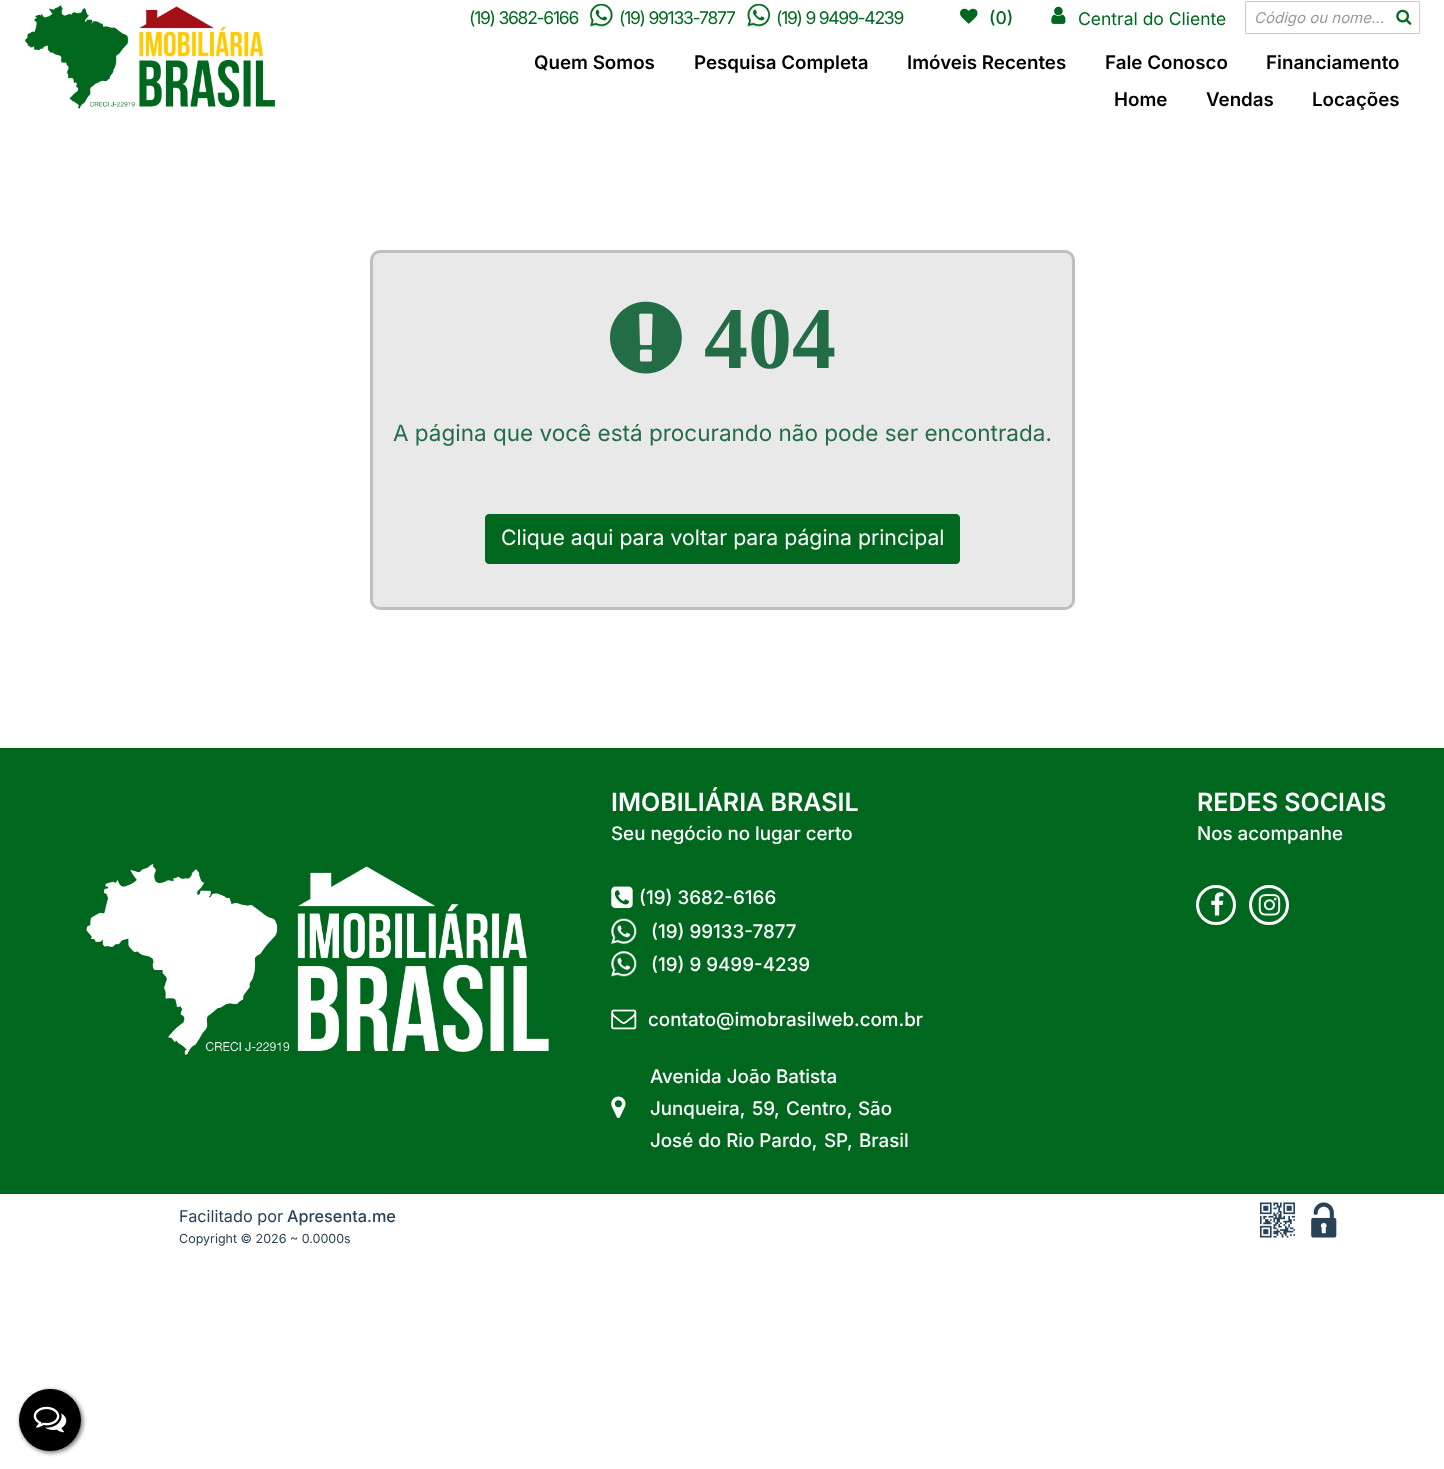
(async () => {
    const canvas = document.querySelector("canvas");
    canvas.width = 1444;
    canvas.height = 1469;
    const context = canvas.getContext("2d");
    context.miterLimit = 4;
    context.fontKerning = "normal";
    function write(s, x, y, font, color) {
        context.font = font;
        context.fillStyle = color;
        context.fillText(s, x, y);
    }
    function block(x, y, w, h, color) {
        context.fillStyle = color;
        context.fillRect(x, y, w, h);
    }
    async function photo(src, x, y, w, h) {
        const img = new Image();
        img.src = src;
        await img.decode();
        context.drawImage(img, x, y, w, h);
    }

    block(0, 0, 1444, 1469, "rgb(255, 255, 255)");
    await photo("media/1.png", 25, 5, 250, 104);
    context.letterSpacing = "-1.25px";
    write("(19) 3682-6166", 469, 24, "17.5px Inter", "rgb(0, 104, 30)");
    await photo("media/2.png", 590, 3, 23, 24);
    write("(19) 99133-7877", 619, 24, "17.5px Inter", "rgb(0, 104, 30)");
    await photo("media/3.png", 747, 3, 23, 24);
    write("(19) 9 9499-4239", 776, 24, "17.5px Inter", "rgb(0, 104, 30)");
    await photo("media/4.png", 960, 8, 18, 16);
    context.letterSpacing = "0px";
    write("(0)", 989, 24, "500 17.5px Inter", "rgb(0, 104, 30)");
    await photo("media/5.png", 1051, 6, 15, 18);
    write("Central do Cliente", 1078, 25, "17.5px Inter", "rgb(0, 104, 30)");
    context.beginPath();
    context.roundRect(1245.5, 1.5, 174, 32, 0.5);
    context.strokeStyle = "rgb(204, 204, 204)";
    context.stroke();
    context.save();
    context.beginPath();
    context.rect(1254, 8, 134, 18);
    context.clip();
    write("Código ou nome...", 1254, 23, "italic 15px Inter", "rgb(153, 153, 153)");
    context.restore();
    await photo("media/6.png", 1396, 9, 16, 16);
    write("Quem Somos", 534, 69, "600 18.75px Inter", "rgb(0, 0, 0)");
    write("Pesquisa Completa", 694, 69, "600 18.75px Inter", "rgb(0, 0, 0)");
    write("Imóveis Recentes", 907, 69, "600 18.75px Inter", "rgb(0, 0, 0)");
    write("Fale Conosco", 1105, 69, "600 18.75px Inter", "rgb(0, 0, 0)");
    write("Financiamento", 1266, 69, "600 18.75px Inter", "rgb(0, 0, 0)");
    write("Home", 1114, 106, "600 18.75px Inter", "rgb(0, 0, 0)");
    write("Vendas", 1206, 106, "600 18.75px Inter", "rgb(0, 0, 0)");
    write("Locações", 1312, 106, "600 18.75px Inter", "rgb(0, 0, 0)");
    context.fillStyle = "rgb(234, 233, 233)";
    context.beginPath();
    context.roundRect(371.5, 251.5, 702, 357, 8.5);
    context.fill();
    context.strokeStyle = "rgb(191, 191, 191)";
    context.lineWidth = 3;
    context.stroke();
    await photo("media/7.png", 610, 301, 72, 73);
    write("404", 704, 368, "bold 88px Liberation Serif", "rgb(35, 109, 70)");
    write("A página que você está procurando não pode ser encontrada.", 393, 441, "22.5px Inter", "rgb(35, 109, 70)");
    context.fillStyle = "rgb(0, 104, 30)";
    context.beginPath();
    context.roundRect(485.5, 514.5, 474, 49, 3.5);
    context.fill();
    context.strokeStyle = "rgb(0, 104, 30)";
    context.lineWidth = 1;
    context.stroke();
    write("Clique aqui para voltar para página principal", 501, 545, "21.25px Inter", "rgb(255, 255, 255)");
    context.fillStyle = "rgba(0, 0, 0, 0.53)";
    context.filter = "blur(2px)";
    context.beginPath();
    context.roundRect(20, 1390, 63, 63, 31.5);
    context.fill();
    context.filter = "none";
    context.fillStyle = "rgb(0, 0, 0)";
    context.beginPath();
    context.arc(50, 1420, 31, 0, Math.PI * 2);
    context.fill();
    await photo("media/8.png", 33, 1406, 34, 27);
    block(0, 748, 1444, 446, "rgb(0, 104, 30)");
    write("IMOBILIÁRIA BRASIL", 611, 811, "600 25px Inter", "rgb(255, 255, 255)");
    write("Seu negócio no lugar certo", 611, 840, "500 18.75px Inter", "rgb(255, 255, 255)");
    await photo("media/9.png", 611, 886, 22, 23);
    write("(19) 3682-6166", 639, 904, "500 18.75px Inter", "rgb(255, 255, 255)");
    await photo("media/10.png", 611, 918, 26, 26);
    write("(19) 99133-7877", 651, 938, "500 18.75px Inter", "rgb(255, 255, 255)");
    await photo("media/11.png", 611, 951, 26, 26);
    write("(19) 9 9499-4239", 651, 971, "500 18.75px Inter", "rgb(255, 255, 255)");
    await photo("media/12.png", 611, 1009, 26, 21);
    write("contato@imobrasilweb.com.br", 648, 1026, "500 18.75px Inter", "rgb(255, 255, 255)");
    await photo("media/13.png", 611, 1096, 15, 22);
    write("Avenida João Batista", 650, 1083, "500 18.75px Inter", "rgb(255, 255, 255)");
    write("Junqueira,", 650, 1115, "500 18.75px Inter", "rgb(255, 255, 255)");
    write("59", 752, 1115, "500 18.75px Inter", "rgb(255, 255, 255)");
    write(",", 774, 1115, "500 18.75px Inter", "rgb(255, 255, 255)");
    write("Centro,", 786, 1115, "500 18.75px Inter", "rgb(255, 255, 255)");
    write("São", 858, 1115, "500 18.75px Inter", "rgb(255, 255, 255)");
    write("José do Rio Pardo,", 650, 1147, "500 18.75px Inter", "rgb(255, 255, 255)");
    write("SP", 824, 1147, "500 18.75px Inter", "rgb(255, 255, 255)");
    write(",", 847, 1147, "500 18.75px Inter", "rgb(255, 255, 255)");
    write("Brasil", 859, 1147, "500 18.75px Inter", "rgb(255, 255, 255)");
    write("REDES SOCIAIS", 1197, 811, "600 25px Inter", "rgb(255, 255, 255)");
    write("Nos acompanhe", 1197, 840, "500 18.75px Inter", "rgb(255, 255, 255)");
    context.beginPath();
    context.arc(1216, 905, 18.5, 0, Math.PI * 2);
    context.strokeStyle = "rgb(255, 255, 255)";
    context.lineWidth = 3;
    context.stroke();
    await photo("media/14.png", 1211, 892, 13, 24);
    context.beginPath();
    context.arc(1269, 905, 18.5, 0, Math.PI * 2);
    context.stroke();
    await photo("media/15.png", 1258, 894, 23, 22);
    await photo("media/16.png", 86, 863, 463, 192);
    write("Facilitado por", 179, 1222, "16.25px Inter", "rgb(40, 67, 89)");
    write("Apresenta.me", 287, 1222, "500 16.25px Inter", "rgb(40, 67, 89)");
    write("Copyright © 2026 ~ 0.0000s", 179, 1243, "12.5px Inter", "rgb(40, 67, 89)");
    await photo("media/17.png", 1260, 1202, 35, 36);
    await photo("media/18.png", 1311, 1202, 26, 36);
})();
